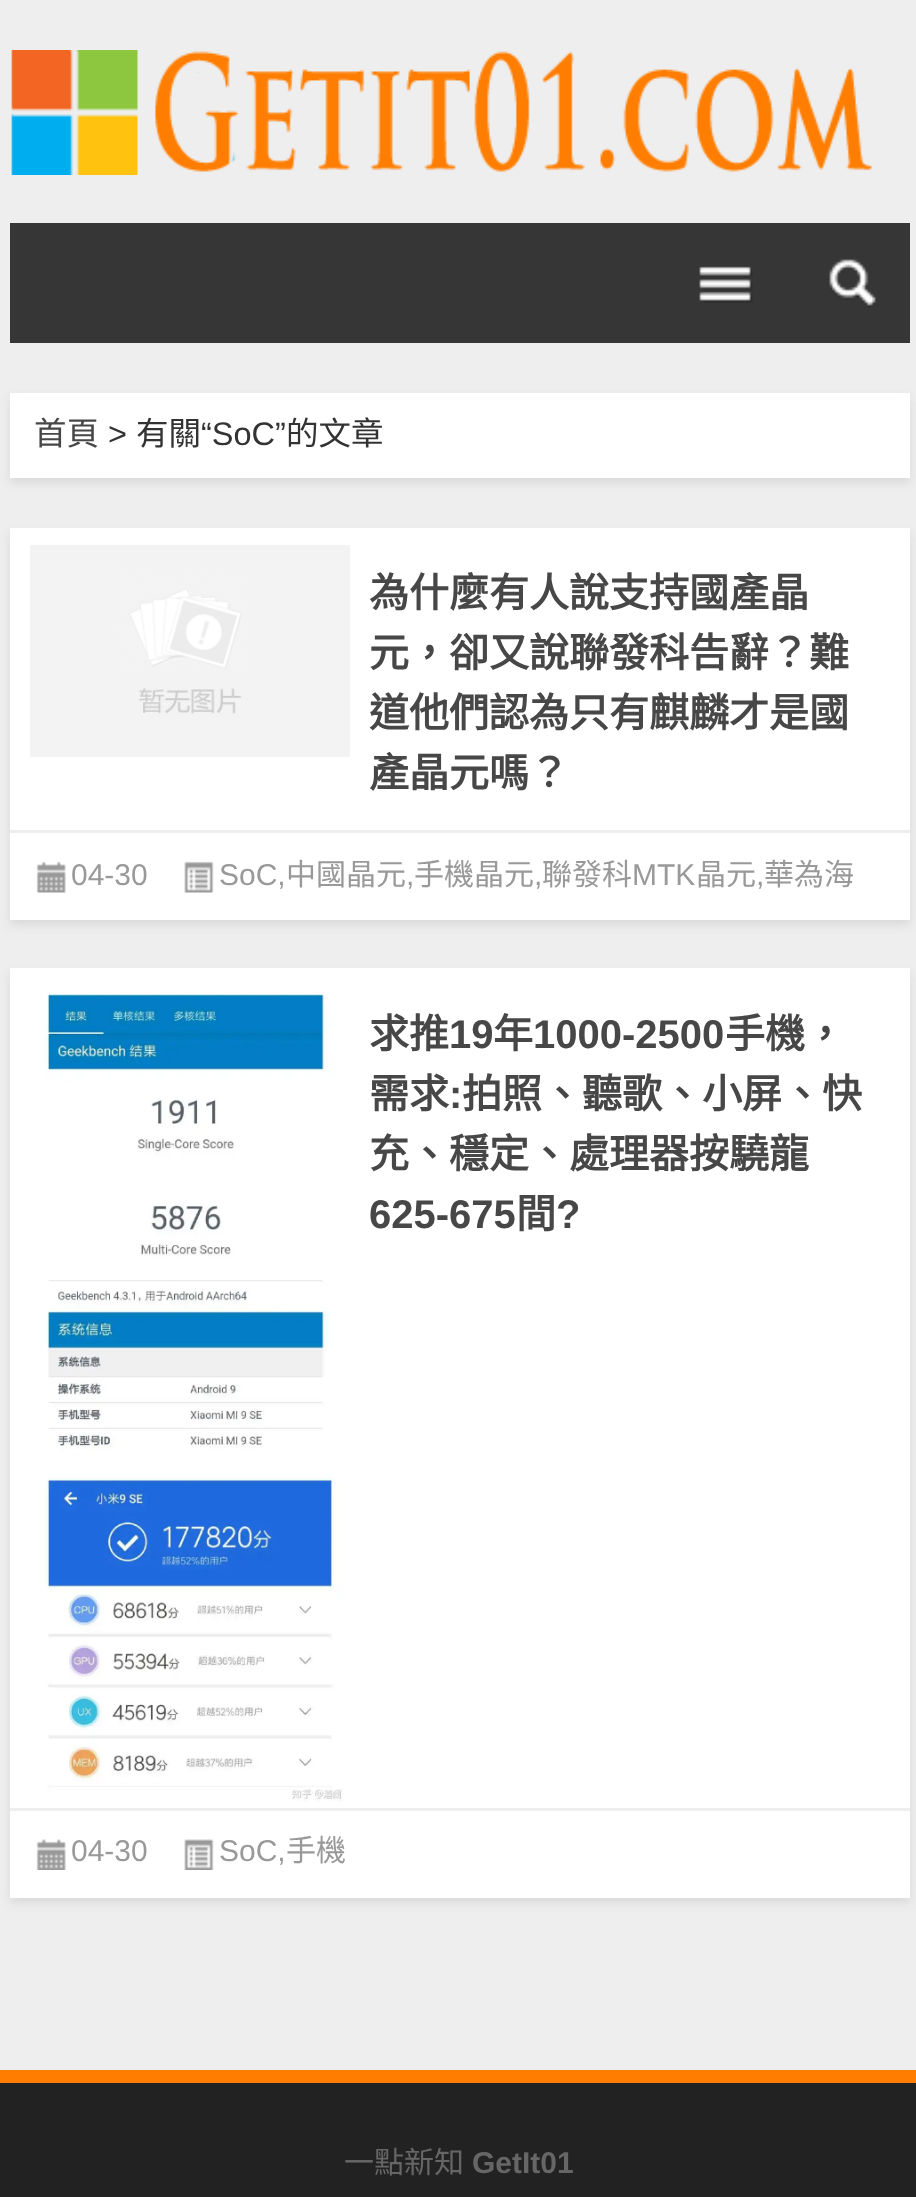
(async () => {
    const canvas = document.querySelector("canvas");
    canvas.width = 916;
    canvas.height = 2197;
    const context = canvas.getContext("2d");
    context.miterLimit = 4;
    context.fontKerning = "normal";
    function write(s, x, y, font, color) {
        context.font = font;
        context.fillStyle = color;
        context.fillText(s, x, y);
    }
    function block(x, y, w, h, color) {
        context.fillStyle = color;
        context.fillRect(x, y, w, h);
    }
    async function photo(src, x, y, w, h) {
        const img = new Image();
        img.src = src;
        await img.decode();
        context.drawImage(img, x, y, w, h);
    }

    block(0, 0, 916, 2197, "rgb(238, 238, 238)");
    await photo("media/1.png", 11, 50, 861, 125);
    block(10, 223, 900, 120, "rgb(54, 54, 54)");
    await photo("media/2.png", 699, 266, 54, 37);
    await photo("media/3.png", 829, 259, 47, 48);
    context.fillStyle = "rgb(217, 217, 217)";
    context.filter = "blur(5px)";
    context.beginPath();
    context.rect(10, 398, 900, 85);
    context.fill();
    context.filter = "none";
    block(10, 393, 900, 85, "rgb(255, 255, 255)");
    write("首頁", 34, 445, "32.5px Noto Sans CJK TC", "rgb(71, 71, 71)");
    write(">", 108, 445, "32.5px Liberation Sans", "rgb(51, 51, 51)");
    write("有關", 136, 445, "32.5px Noto Sans CJK TC", "rgb(51, 51, 51)");
    write("“SoC”", 201, 445, "32.5px Liberation Sans", "rgb(51, 51, 51)");
    write("的文章", 286, 445, "32.5px Noto Sans CJK TC", "rgb(51, 51, 51)");
    context.fillStyle = "rgb(217, 217, 217)";
    context.filter = "blur(5px)";
    context.beginPath();
    context.rect(10, 533, 900, 392);
    context.fill();
    context.filter = "none";
    block(10, 528, 900, 392, "rgb(255, 255, 255)");
    await photo("media/4.png", 30, 545, 320, 212);
    write("為什麼有人說支持國產晶", 369, 607, "bold 40px Noto Sans CJK TC", "rgb(71, 71, 71)");
    write("元，卻又說聯發科告辭？難", 369, 667, "bold 40px Noto Sans CJK TC", "rgb(71, 71, 71)");
    write("道他們認為只有麒麟才是國", 369, 727, "bold 40px Noto Sans CJK TC", "rgb(71, 71, 71)");
    write("產晶元嗎？", 369, 787, "bold 40px Noto Sans CJK TC", "rgb(71, 71, 71)");
    block(10, 830, 900, 3, "rgb(238, 238, 238)");
    await photo("media/5.png", 36, 861, 30, 32);
    write("04-30", 71, 885, "30px Liberation Sans", "rgb(153, 153, 153)");
    await photo("media/6.png", 184, 861, 30, 32);
    write("SoC,", 219, 885, "30px Liberation Sans", "rgb(153, 153, 153)");
    write("中國晶元", 286, 885, "30px Noto Sans CJK TC", "rgb(153, 153, 153)");
    write(",", 406, 885, "30px Liberation Sans", "rgb(153, 153, 153)");
    write("手機晶元", 414, 885, "30px Noto Sans CJK TC", "rgb(153, 153, 153)");
    write(",", 534, 885, "30px Liberation Sans", "rgb(153, 153, 153)");
    write("聯發科", 542, 885, "30px Noto Sans CJK TC", "rgb(153, 153, 153)");
    write("MTK", 632, 885, "30px Liberation Sans", "rgb(153, 153, 153)");
    write("晶元", 696, 885, "30px Noto Sans CJK TC", "rgb(153, 153, 153)");
    write(",", 756, 885, "30px Liberation Sans", "rgb(153, 153, 153)");
    write("華為海", 764, 885, "30px Noto Sans CJK TC", "rgb(153, 153, 153)");
    context.fillStyle = "rgb(217, 217, 217)";
    context.filter = "blur(5px)";
    context.beginPath();
    context.rect(10, 973, 900, 930);
    context.fill();
    context.filter = "none";
    block(10, 968, 900, 930, "rgb(255, 255, 255)");
    await photo("media/7.png", 44, 992, 299, 810);
    write("求推", 369, 1048, "bold 40px Noto Sans CJK TC", "rgb(71, 71, 71)");
    write("19", 449, 1048, "bold 40px Liberation Sans", "rgb(71, 71, 71)");
    write("年", 493, 1048, "bold 40px Noto Sans CJK TC", "rgb(71, 71, 71)");
    write("1000-2500", 533, 1048, "bold 40px Liberation Sans", "rgb(71, 71, 71)");
    write("手機，", 725, 1048, "bold 40px Noto Sans CJK TC", "rgb(71, 71, 71)");
    write("需求", 369, 1108, "bold 40px Noto Sans CJK TC", "rgb(71, 71, 71)");
    write(":", 449, 1108, "bold 40px Liberation Sans", "rgb(71, 71, 71)");
    write("拍照、聽歌、小屏、快", 462, 1108, "bold 40px Noto Sans CJK TC", "rgb(71, 71, 71)");
    write("充、穩定、處理器按驍龍", 369, 1168, "bold 40px Noto Sans CJK TC", "rgb(71, 71, 71)");
    write("625-675", 369, 1228, "bold 40px Liberation Sans", "rgb(71, 71, 71)");
    write("間", 516, 1228, "bold 40px Noto Sans CJK TC", "rgb(71, 71, 71)");
    write("?", 556, 1228, "bold 40px Liberation Sans", "rgb(71, 71, 71)");
    block(10, 1808, 900, 3, "rgb(238, 238, 238)");
    await photo("media/8.png", 36, 1839, 30, 31);
    write("04-30", 71, 1861, "30px Liberation Sans", "rgb(153, 153, 153)");
    await photo("media/9.png", 184, 1839, 30, 31);
    write("SoC,", 219, 1861, "30px Liberation Sans", "rgb(153, 153, 153)");
    write("手機", 286, 1861, "30px Noto Sans CJK TC", "rgb(153, 153, 153)");
    block(0, 2083, 916, 114, "rgb(34, 34, 34)");
    block(0, 2070, 916, 13, "rgb(255, 125, 0)");
    write("一點新知", 344, 2173, "30px Noto Sans CJK TC", "rgb(102, 102, 102)");
    write("GetIt01", 472, 2173, "bold 30px Liberation Sans", "rgb(102, 102, 102)");
})();
